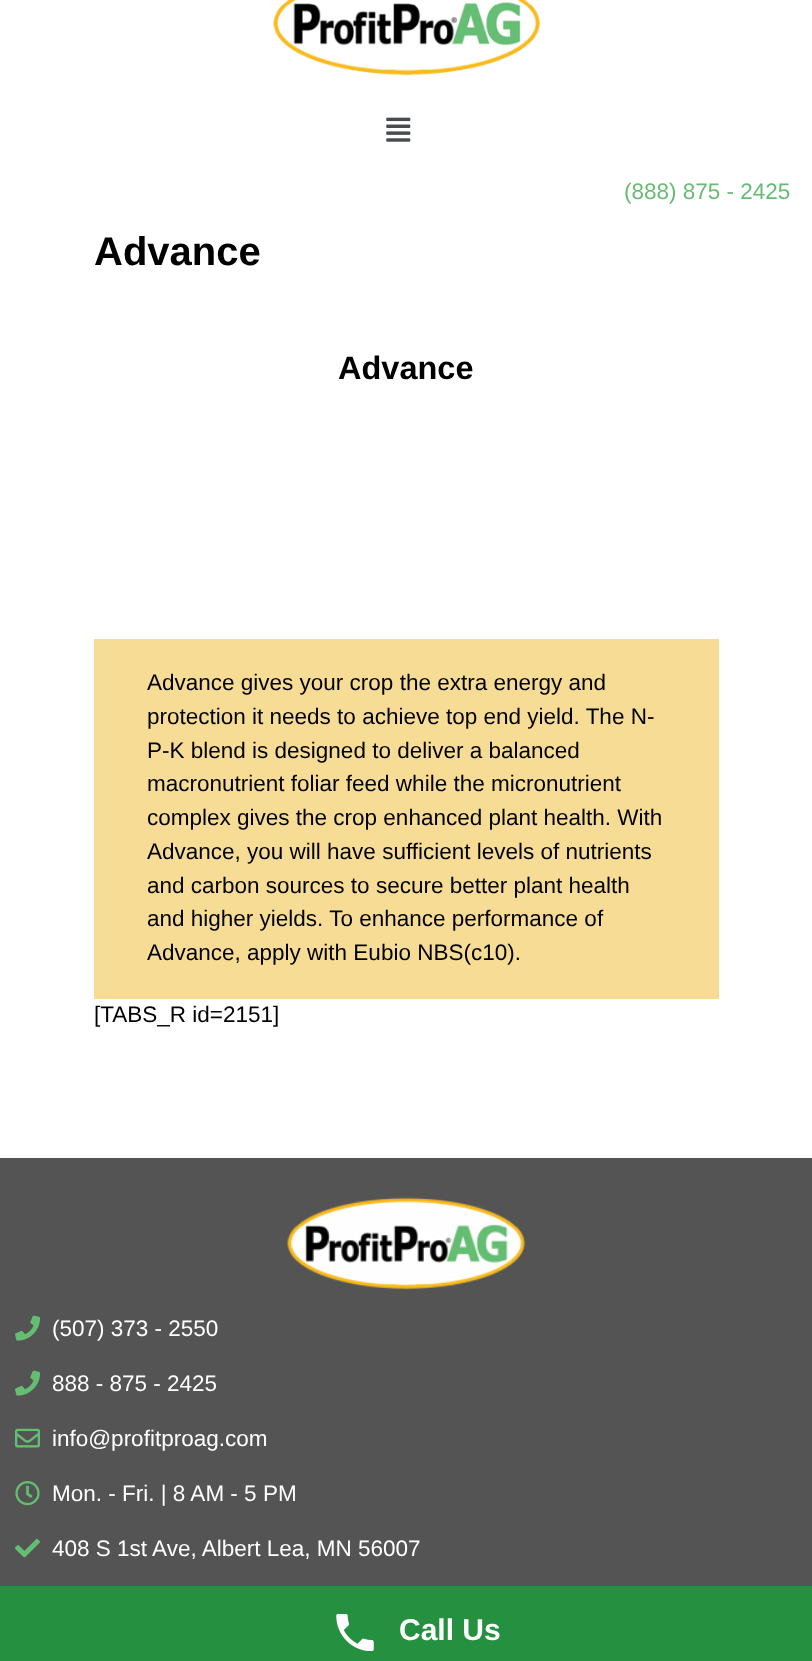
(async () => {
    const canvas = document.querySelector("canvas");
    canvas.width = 812;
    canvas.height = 1661;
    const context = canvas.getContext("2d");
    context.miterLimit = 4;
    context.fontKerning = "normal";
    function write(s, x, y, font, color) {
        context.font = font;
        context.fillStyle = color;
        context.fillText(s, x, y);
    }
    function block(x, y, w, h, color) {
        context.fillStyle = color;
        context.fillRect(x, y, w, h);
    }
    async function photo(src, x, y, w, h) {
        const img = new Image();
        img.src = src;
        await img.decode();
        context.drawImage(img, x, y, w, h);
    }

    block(0, 0, 812, 1661, "rgb(255, 255, 255)");
    await photo("media/1.png", 272, 0, 269, 76);
    await photo("media/2.png", 386, 117, 25, 25);
    write("(888) 875 - 2425", 624, 199, "22.5px Liberation Sans", "rgb(102, 188, 115)");
    write("Advance", 94, 265, "bold 40px Liberation Sans", "rgb(0, 0, 0)");
    write("Advance", 338, 379, "bold 32.5px Liberation Sans", "rgb(0, 0, 0)");
    block(94, 639, 625, 360, "rgb(246, 220, 149)");
    write("Advance gives your crop the extra energy and", 147, 690, "22.5px Liberation Sans", "rgb(0, 0, 0)");
    write("protection it needs to achieve top end yield. The N-", 147, 724, "22.5px Liberation Sans", "rgb(0, 0, 0)");
    write("P-K blend is designed to deliver a balanced", 147, 758, "22.5px Liberation Sans", "rgb(0, 0, 0)");
    write("macronutrient foliar feed while the micronutrient", 147, 791, "22.5px Liberation Sans", "rgb(0, 0, 0)");
    write("complex gives the crop enhanced plant health. With", 147, 825, "22.5px Liberation Sans", "rgb(0, 0, 0)");
    write("Advance, you will have sufficient levels of nutrients", 147, 859, "22.5px Liberation Sans", "rgb(0, 0, 0)");
    write("and carbon sources to secure better plant health", 147, 893, "22.5px Liberation Sans", "rgb(0, 0, 0)");
    write("and higher yields. To enhance performance of", 147, 926, "22.5px Liberation Sans", "rgb(0, 0, 0)");
    write("Advance, apply with Eubio NBS(c10).", 147, 960, "22.5px Liberation Sans", "rgb(0, 0, 0)");
    write("[TABS_R id=2151]", 94, 1022, "22.5px Liberation Sans", "rgb(0, 0, 0)");
    block(0, 1158, 812, 428, "rgb(84, 84, 84)");
    await photo("media/3.png", 287, 1197, 239, 93);
    await photo("media/4.png", 15, 1315, 25, 26);
    write("(507) 373 - 2550", 52, 1336, "22.5px Liberation Sans", "rgb(255, 255, 255)");
    await photo("media/4.png", 15, 1370, 25, 26);
    write("888 - 875 - 2425", 52, 1391, "22.5px Liberation Sans", "rgb(255, 255, 255)");
    await photo("media/5.png", 15, 1428, 25, 20);
    write("info@profitproag.com", 52, 1446, "22.5px Liberation Sans", "rgb(255, 255, 255)");
    await photo("media/6.png", 15, 1481, 25, 25);
    write("Mon. - Fri. | 8 AM - 5 PM", 52, 1501, "22.5px Liberation Sans", "rgb(255, 255, 255)");
    await photo("media/7.png", 15, 1538, 25, 20);
    write("408 S 1st Ave, Albert Lea, MN 56007", 52, 1556, "22.5px Liberation Sans", "rgb(255, 255, 255)");
    block(0, 1586, 812, 75, "rgb(38, 144, 65)");
    await photo("media/8.png", 336, 1614, 38, 37);
    write("Call Us", 399, 1640, "bold 30px Liberation Sans", "rgb(255, 255, 255)");
})();
